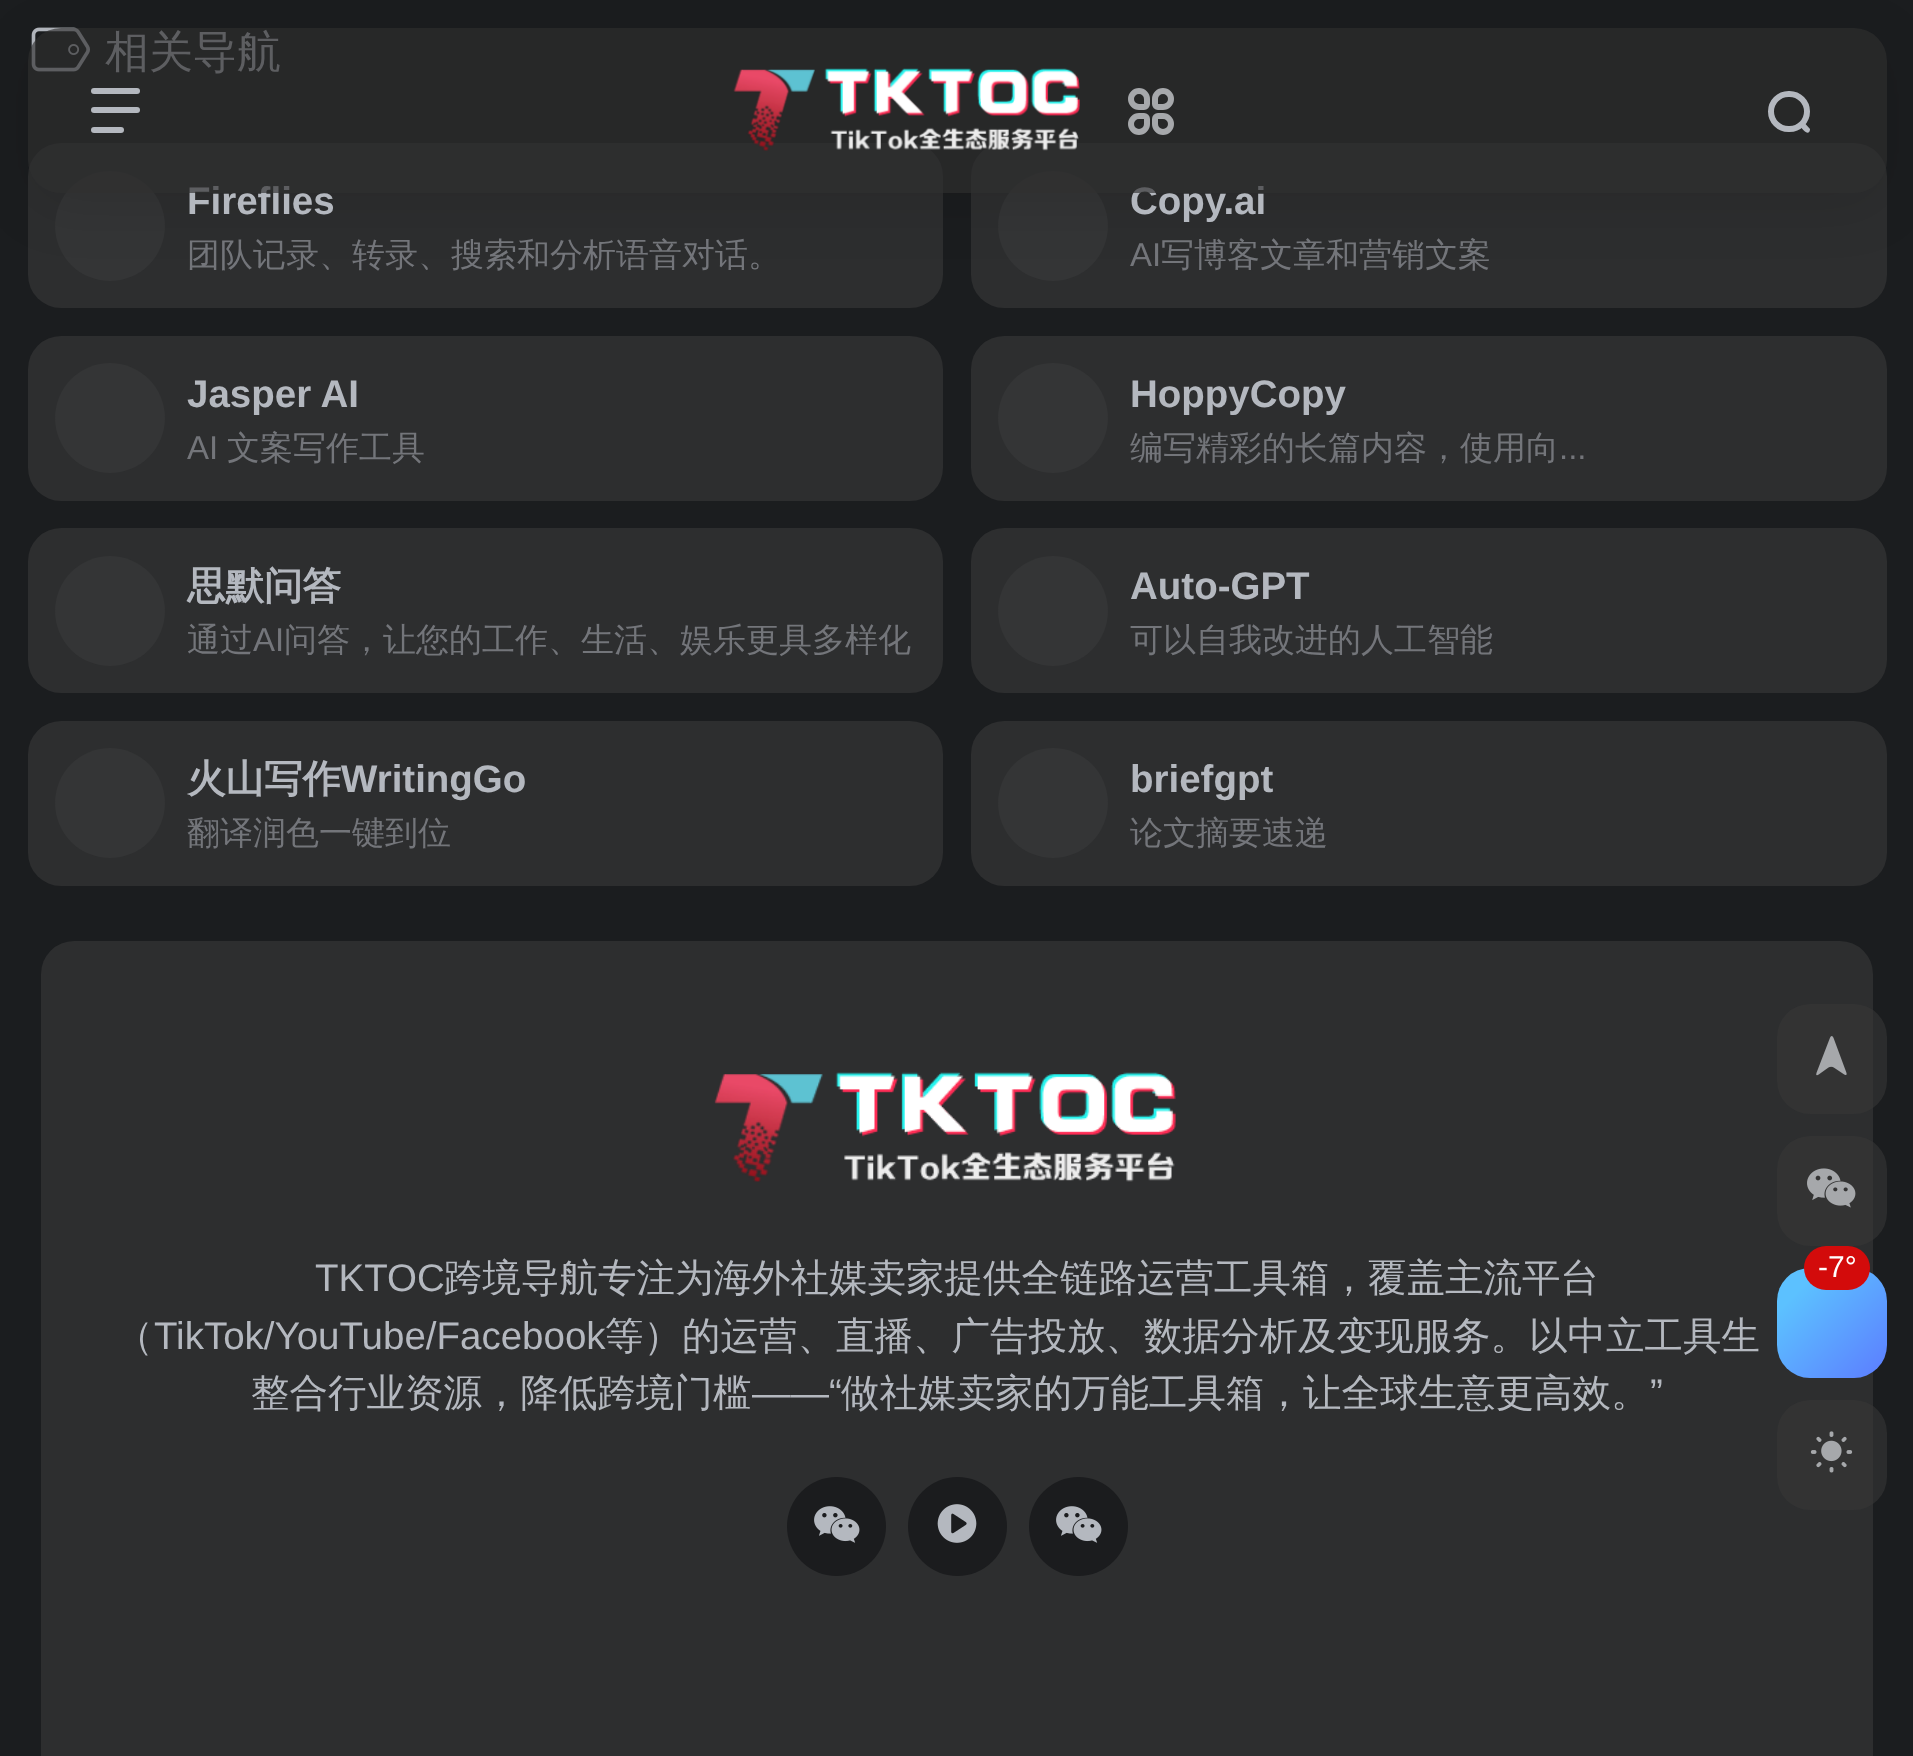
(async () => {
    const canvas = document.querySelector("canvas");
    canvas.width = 1913;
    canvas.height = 1756;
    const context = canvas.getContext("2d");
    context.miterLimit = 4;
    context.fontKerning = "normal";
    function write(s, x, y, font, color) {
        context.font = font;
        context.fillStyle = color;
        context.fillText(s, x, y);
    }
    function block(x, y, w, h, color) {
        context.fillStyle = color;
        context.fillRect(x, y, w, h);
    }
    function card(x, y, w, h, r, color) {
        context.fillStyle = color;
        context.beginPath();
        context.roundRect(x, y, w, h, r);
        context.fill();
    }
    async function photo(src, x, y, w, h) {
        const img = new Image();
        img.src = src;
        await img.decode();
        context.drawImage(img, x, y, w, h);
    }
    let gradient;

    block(0, 0, 1913, 1756, "rgb(27, 29, 31)");
    await photo("media/2.png", 31, 27, 59, 45);
    card(28, 143, 915, 165, 33, "rgb(45, 46, 47)");
    context.fillStyle = "rgb(52, 53, 54)";
    context.beginPath();
    context.arc(110, 226, 55, 0, Math.PI * 2);
    context.fill();
    card(971, 143, 916, 165, 33, "rgb(45, 46, 47)");
    context.fillStyle = "rgb(52, 53, 54)";
    context.beginPath();
    context.arc(1053, 226, 55, 0, Math.PI * 2);
    context.fill();
    context.save();
    context.beginPath();
    context.moveTo(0, 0);
    context.lineTo(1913, 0);
    context.lineTo(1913, 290);
    context.lineTo(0, 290);
    context.closePath();
    context.moveTo(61, 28);
    context.lineTo(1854, 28);
    context.bezierCurveTo(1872, 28, 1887, 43, 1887, 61);
    context.lineTo(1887, 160);
    context.bezierCurveTo(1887, 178, 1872, 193, 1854, 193);
    context.lineTo(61, 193);
    context.bezierCurveTo(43, 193, 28, 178, 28, 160);
    context.lineTo(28, 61);
    context.bezierCurveTo(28, 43, 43, 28, 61, 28);
    context.closePath();
    context.clip("evenodd");
    context.fillStyle = "rgba(0, 0, 0, 0.1)";
    context.filter = "blur(27.5px)";
    context.beginPath();
    context.roundRect(28, 41, 1859, 165, 33);
    context.fill();
    context.filter = "none";
    context.restore();
    write("相关导航", 105, 67, "500 44px WenQuanYi Zen Hei", "rgb(180, 184, 191)");
    write("Fireflies", 187, 214, "bold 38.5px Liberation Sans", "rgb(180, 184, 191)");
    write("Copy.ai", 1130, 214, "bold 38.5px Liberation Sans", "rgb(180, 184, 191)");
    card(28, 28, 1859, 165, 33, "rgba(46, 46, 46, 0.65)");
    card(91, 88, 49, 6, 3, "rgb(180, 184, 191)");
    card(91, 107, 49, 6, 3, "rgb(180, 184, 191)");
    card(91, 127, 33, 6, 3, "rgb(180, 184, 191)");
    await photo("media/1.png", 733, 68, 347, 83);
    context.beginPath();
    context.roundRect(1131, 91, 16, 16, [8, 8, 3, 8]);
    context.strokeStyle = "rgb(166, 168, 171)";
    context.lineWidth = 6;
    context.stroke();
    context.beginPath();
    context.roundRect(1155, 91, 16, 16, [8, 8, 8, 3]);
    context.stroke();
    context.beginPath();
    context.roundRect(1131, 116, 16, 16, [8, 3, 8, 8]);
    context.stroke();
    context.beginPath();
    context.roundRect(1155, 116, 16, 16, [3, 8, 8, 8]);
    context.stroke();
    context.beginPath();
    context.roundRect(1771, 94, 36, 35, 17.5);
    context.strokeStyle = "rgb(180, 184, 191)";
    context.stroke();
    context.beginPath();
    context.moveTo(1805.5, 124);
    context.lineTo(1810, 129);
    context.bezierCurveTo(1810, 129.5, 1810, 130.5, 1809.5, 131.5);
    context.bezierCurveTo(1807, 135, 1803, 129.5, 1801.5, 128);
    context.bezierCurveTo(1799, 125.5, 1803, 121.5, 1805.5, 124);
    context.closePath();
    context.fill();
    write("团队记录、转录、搜索和分析语音对话。", 187, 266, "500 33px WenQuanYi Zen Hei", "rgb(115, 117, 122)");
    write("AI", 1130, 266, "33px Liberation Sans", "rgb(115, 117, 122)");
    write("写博客文章和营销文案", 1161, 266, "500 33px WenQuanYi Zen Hei", "rgb(115, 117, 122)");
    card(28, 336, 915, 165, 33, "rgb(45, 46, 47)");
    context.fillStyle = "rgb(52, 53, 54)";
    context.beginPath();
    context.arc(110, 418, 55, 0, Math.PI * 2);
    context.fill();
    write("Jasper AI", 187, 407, "bold 38.5px Liberation Sans", "rgb(180, 184, 191)");
    write("AI", 187, 459, "33px Liberation Sans", "rgb(115, 117, 122)");
    write("文案写作工具", 227, 459, "500 33px WenQuanYi Zen Hei", "rgb(115, 117, 122)");
    card(971, 336, 916, 165, 33, "rgb(45, 46, 47)");
    context.fillStyle = "rgb(52, 53, 54)";
    context.beginPath();
    context.arc(1053, 418, 55, 0, Math.PI * 2);
    context.fill();
    write("HoppyCopy", 1130, 407, "bold 38.5px Liberation Sans", "rgb(180, 184, 191)");
    write("编写精彩的长篇内容，使用向", 1130, 459, "500 33px WenQuanYi Zen Hei", "rgb(115, 117, 122)");
    write("...", 1559, 459, "33px Liberation Sans", "rgb(115, 117, 122)");
    card(28, 528, 915, 165, 33, "rgb(45, 46, 47)");
    context.fillStyle = "rgb(52, 53, 54)";
    context.beginPath();
    context.arc(110, 611, 55, 0, Math.PI * 2);
    context.fill();
    write("思默问答", 187, 599, "bold 38.5px WenQuanYi Zen Hei", "rgb(180, 184, 191)");
    write("通过", 187, 651, "500 33px WenQuanYi Zen Hei", "rgb(115, 117, 122)");
    write("AI", 253, 651, "33px Liberation Sans", "rgb(115, 117, 122)");
    write("问答，让您的工作、生活、娱乐更具多样化", 284, 651, "500 33px WenQuanYi Zen Hei", "rgb(115, 117, 122)");
    card(971, 528, 916, 165, 33, "rgb(45, 46, 47)");
    context.fillStyle = "rgb(52, 53, 54)";
    context.beginPath();
    context.arc(1053, 611, 55, 0, Math.PI * 2);
    context.fill();
    write("Auto-GPT", 1130, 599, "bold 38.5px Liberation Sans", "rgb(180, 184, 191)");
    write("可以自我改进的人工智能", 1130, 651, "500 33px WenQuanYi Zen Hei", "rgb(115, 117, 122)");
    card(28, 721, 915, 165, 33, "rgb(45, 46, 47)");
    context.fillStyle = "rgb(52, 53, 54)";
    context.beginPath();
    context.arc(110, 803, 55, 0, Math.PI * 2);
    context.fill();
    write("火山写作", 187, 792, "bold 38.5px WenQuanYi Zen Hei", "rgb(180, 184, 191)");
    write("WritingGo", 341, 792, "bold 38.5px Liberation Sans", "rgb(180, 184, 191)");
    write("翻译润色一键到位", 187, 844, "500 33px WenQuanYi Zen Hei", "rgb(115, 117, 122)");
    card(971, 721, 916, 165, 33, "rgb(45, 46, 47)");
    context.fillStyle = "rgb(52, 53, 54)";
    context.beginPath();
    context.arc(1053, 803, 55, 0, Math.PI * 2);
    context.fill();
    write("briefgpt", 1130, 792, "bold 38.5px Liberation Sans", "rgb(180, 184, 191)");
    write("论文摘要速递", 1130, 844, "500 33px WenQuanYi Zen Hei", "rgb(115, 117, 122)");
    card(41, 941, 1832, 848, 33, "rgb(45, 46, 47)");
    await photo("media/3.png", 714, 1072, 462, 110);
    write("TKTOC", 315, 1291, "38.5px Liberation Sans", "rgb(180, 184, 191)");
    write("跨境导航专注为海外社媒卖家提供全链路运营工具箱，覆盖主流平台", 444, 1291, "500 38.5px WenQuanYi Zen Hei", "rgb(180, 184, 191)");
    write("（", 115, 1349, "500 38.5px WenQuanYi Zen Hei", "rgb(180, 184, 191)");
    write("TikTok/YouTube/Facebook", 154, 1349, "38.5px Liberation Sans", "rgb(180, 184, 191)");
    write("等）的运营、直播、广告投放、数据分析及变现服务。以中立工具生", 605, 1349, "500 38.5px WenQuanYi Zen Hei", "rgb(180, 184, 191)");
    write("整合行业资源，降低跨境门槛", 251, 1406, "500 38.5px WenQuanYi Zen Hei", "rgb(180, 184, 191)");
    write("——“", 752, 1406, "38.5px Liberation Sans", "rgb(180, 184, 191)");
    write("做社媒卖家的万能工具箱，让全球生意更高效。", 841, 1406, "500 38.5px WenQuanYi Zen Hei", "rgb(180, 184, 191)");
    write("”", 1650, 1406, "38.5px Liberation Sans", "rgb(180, 184, 191)");
    context.fillStyle = "rgb(27, 28, 30)";
    context.beginPath();
    context.arc(836.5, 1526.5, 49.5, 0, Math.PI * 2);
    context.fill();
    await photo("media/4.png", 814, 1506, 46, 37);
    context.beginPath();
    context.arc(957.5, 1526.5, 49.5, 0, Math.PI * 2);
    context.fill();
    await photo("media/5.png", 937, 1504, 40, 39);
    context.beginPath();
    context.arc(1078.5, 1526.5, 49.5, 0, Math.PI * 2);
    context.fill();
    await photo("media/4.png", 1056, 1506, 46, 37);
    card(1777, 1004, 110, 110, 33, "rgba(55, 55, 55, 0.6)");
    await photo("media/6.png", 1816, 1036, 31, 40);
    card(1777, 1136, 110, 110, 33, "rgba(55, 55, 55, 0.6)");
    await photo("media/7.png", 1807, 1168, 49, 40);
    gradient = context.createLinearGradient(1777, 1268, 1887, 1378);
    gradient.addColorStop(0.2, "rgb(92, 193, 255)");
    gradient.addColorStop(1, "rgb(92, 124, 255)");
    context.fillStyle = gradient;
    context.beginPath();
    context.roundRect(1777, 1268, 110, 110, 33);
    context.fill();
    card(1804, 1246, 66, 44, 22, "rgb(211, 11, 11)");
    write("-7°", 1818, 1277, "30px Liberation Sans", "rgb(255, 255, 255)");
    card(1777, 1400, 110, 110, 33, "rgba(55, 55, 55, 0.6)");
    await photo("media/8.png", 1810, 1431, 43, 42);
})();
